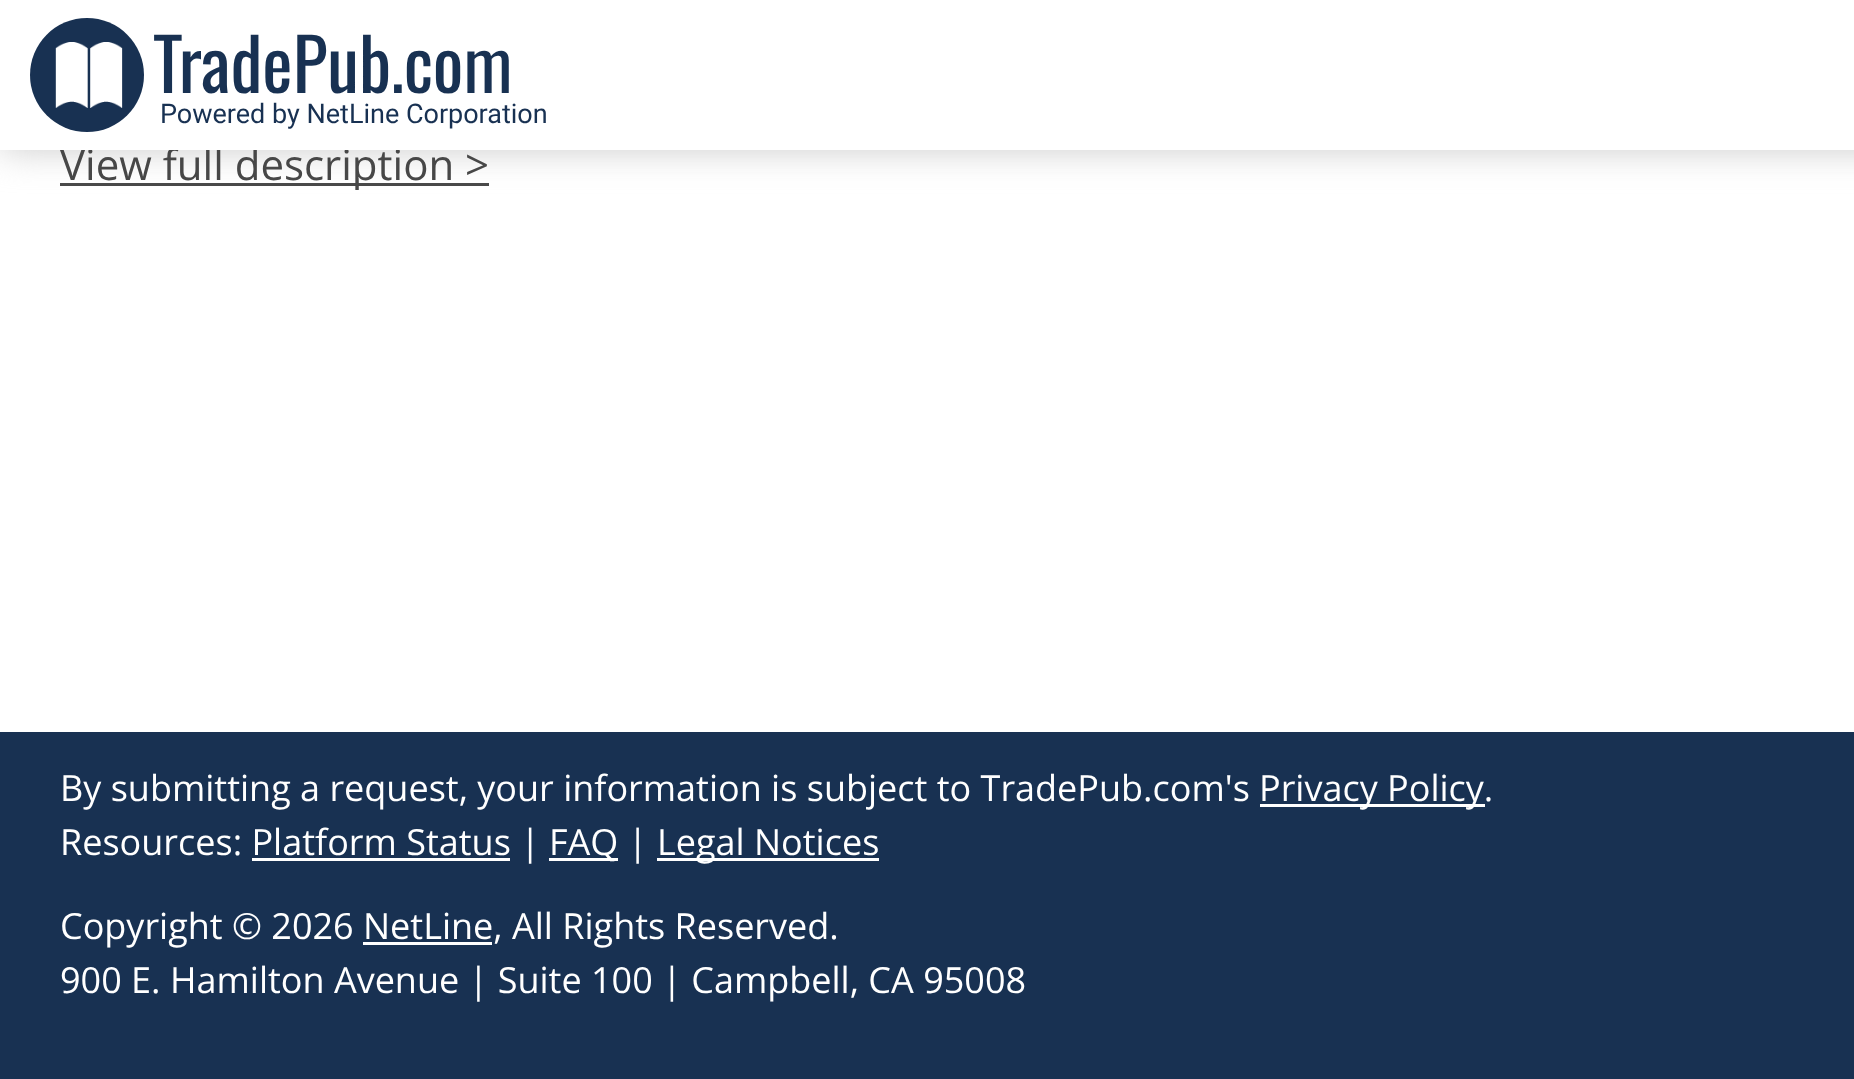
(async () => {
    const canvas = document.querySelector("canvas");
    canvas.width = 1854;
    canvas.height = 1079;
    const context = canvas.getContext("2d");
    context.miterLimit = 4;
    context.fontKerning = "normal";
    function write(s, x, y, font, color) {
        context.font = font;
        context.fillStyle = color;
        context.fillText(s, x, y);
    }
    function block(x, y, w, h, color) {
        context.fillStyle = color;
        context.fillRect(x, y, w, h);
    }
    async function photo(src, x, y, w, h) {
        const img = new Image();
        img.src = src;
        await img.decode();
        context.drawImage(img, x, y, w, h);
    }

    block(0, 0, 1854, 1079, "rgb(24, 49, 82)");
    block(0, 150, 1854, 582, "rgb(255, 255, 255)");
    block(60, 183, 429, 3, "rgb(71, 71, 71)");
    context.fillStyle = "rgb(204, 204, 204)";
    context.filter = "blur(18px)";
    context.beginPath();
    context.rect(0, 0, 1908, 150);
    context.fill();
    context.filter = "none";
    write("View full description >", 60, 180, "42px Open Sans", "rgb(71, 71, 71)");
    block(0, 0, 1854, 150, "rgb(255, 255, 255)");
    context.fillStyle = "rgb(24, 49, 82)";
    context.beginPath();
    context.arc(87, 75, 57, 0, Math.PI * 2);
    context.fill();
    await photo("media/1.png", 55, 42, 68, 66);
    write("TradePub.com", 153, 93, "72px Oswald", "rgb(24, 49, 82)");
    write("Powered by NetLine Corporation", 160, 123, "27px Roboto", "rgb(24, 49, 82)");
    write("By submitting a request, your information is subject to TradePub.com's", 60, 801, "36px Open Sans", "rgb(255, 255, 255)");
    block(1260, 804, 225, 3, "rgb(255, 255, 255)");
    write("Privacy Policy.", 1259, 801, "36px Open Sans", "rgb(255, 255, 255)");
    write("Resources: Platform Status |", 60, 855, "36px Open Sans", "rgb(255, 255, 255)");
    block(549, 858, 69, 3, "rgb(255, 255, 255)");
    write("FAQ |", 549, 855, "36px Open Sans", "rgb(255, 255, 255)");
    block(657, 858, 222, 3, "rgb(255, 255, 255)");
    write("Legal Notices", 657, 855, "36px Open Sans", "rgb(255, 255, 255)");
    block(252, 858, 258, 3, "rgb(255, 255, 255)");
    write("Copyright © 2026 NetLine, All Rights Reserved.", 60, 939, "36px Open Sans", "rgb(255, 255, 255)");
    block(363, 942, 129, 3, "rgb(255, 255, 255)");
    write("900 E. Hamilton Avenue | Suite 100 | Campbell, CA 95008", 60, 993, "36px Open Sans", "rgb(255, 255, 255)");
})();
